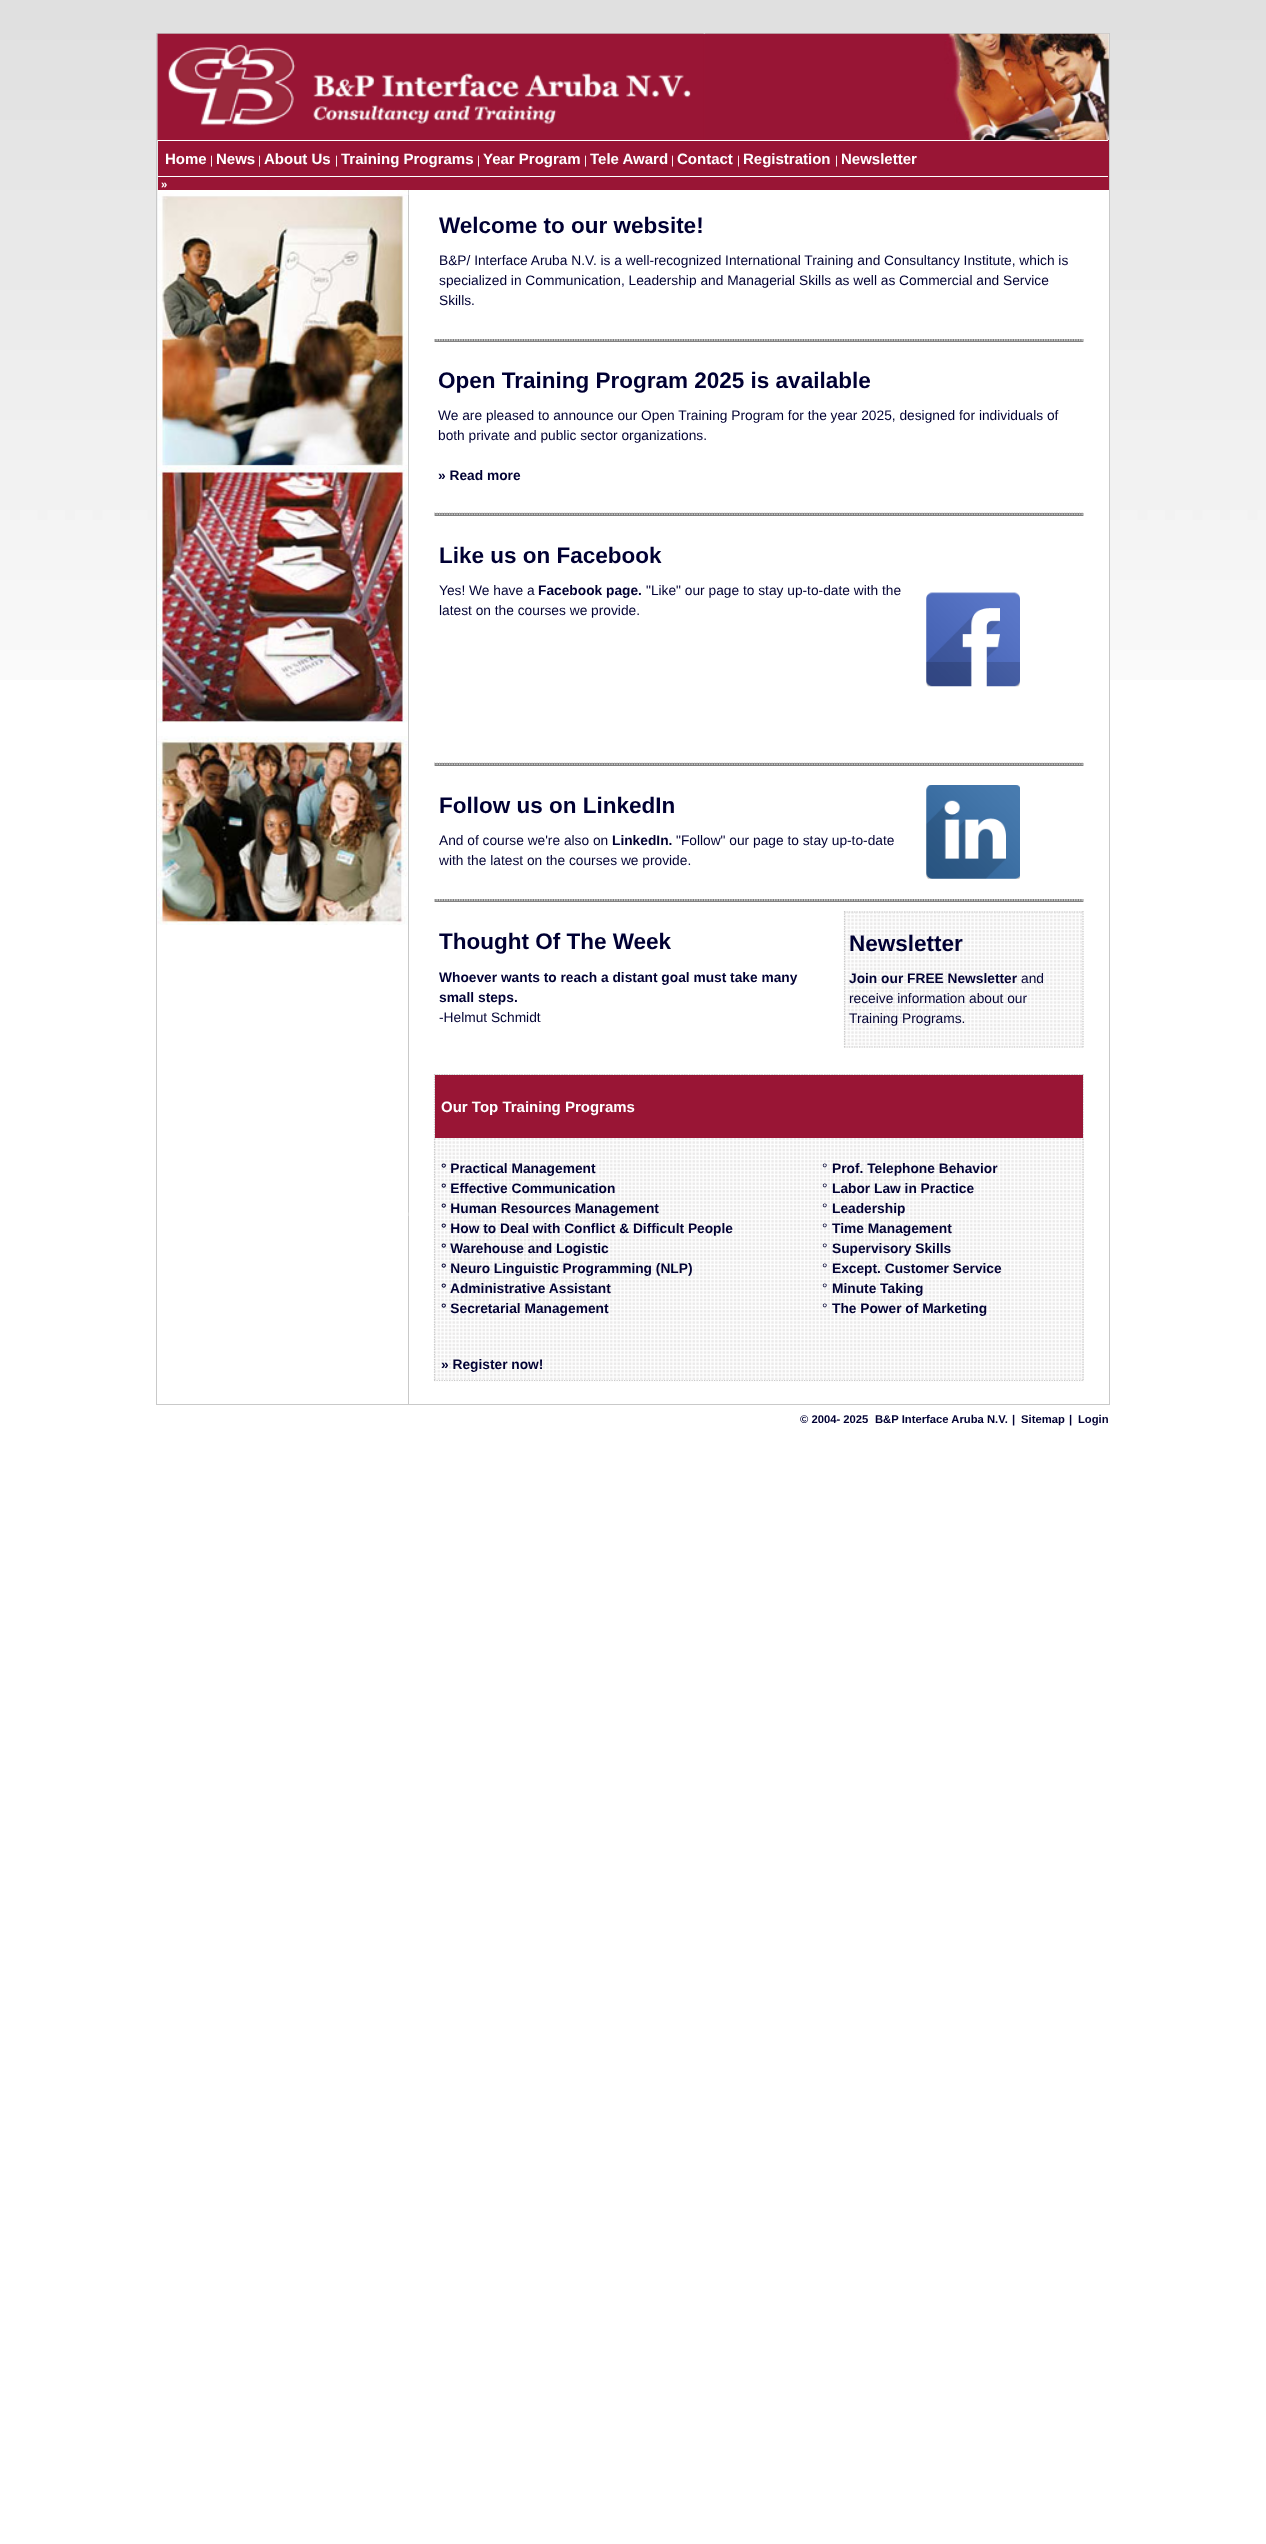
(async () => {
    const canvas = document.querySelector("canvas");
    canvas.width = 1266;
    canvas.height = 2544;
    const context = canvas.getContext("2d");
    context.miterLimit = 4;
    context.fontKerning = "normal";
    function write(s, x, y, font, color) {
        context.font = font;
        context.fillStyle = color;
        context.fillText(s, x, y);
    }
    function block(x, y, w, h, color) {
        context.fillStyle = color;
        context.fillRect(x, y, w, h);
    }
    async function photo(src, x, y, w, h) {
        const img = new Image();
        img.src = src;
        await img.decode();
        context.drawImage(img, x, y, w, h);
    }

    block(0, 0, 1266, 2544, "rgb(255, 255, 255)");
    await photo("media/1.png", 0, 0, 1266, 680);
    context.strokeStyle = "rgb(201, 201, 201)";
    context.strokeRect(156.5, 33.5, 953, 1371);
    block(158, 34, 951, 646, "rgb(255, 255, 255)");
    block(703, 34, 2, 106, "rgb(153, 21, 53)");
    await photo("media/2.png", 157, 33, 547, 107);
    await photo("media/3.png", 705, 33, 404, 107);
    block(158, 140, 951, 50, "rgb(153, 21, 53)");
    block(158, 140, 950, 1, "rgb(255, 255, 255)");
    block(158, 176, 950, 1, "rgb(255, 255, 255)");
    write("Home", 165, 164, "bold 15px Liberation Sans", "rgb(255, 255, 255)");
    write("|", 210, 164, "11.25px Liberation Sans", "rgb(255, 255, 255)");
    write("News", 216, 164, "bold 15px Liberation Sans", "rgb(255, 255, 255)");
    write("|", 258, 164, "11.25px Liberation Sans", "rgb(255, 255, 255)");
    write("About Us", 264, 164, "bold 15px Liberation Sans", "rgb(255, 255, 255)");
    write("|", 335, 164, "11.25px Liberation Sans", "rgb(255, 255, 255)");
    write("Training Programs", 341, 164, "bold 15px Liberation Sans", "rgb(255, 255, 255)");
    write("|", 477, 164, "11.25px Liberation Sans", "rgb(255, 255, 255)");
    write("Year Program", 483, 164, "bold 15px Liberation Sans", "rgb(255, 255, 255)");
    write("|", 584, 164, "11.25px Liberation Sans", "rgb(255, 255, 255)");
    write("Tele Award", 590, 164, "bold 15px Liberation Sans", "rgb(255, 255, 255)");
    write("|", 671, 164, "11.25px Liberation Sans", "rgb(255, 255, 255)");
    write("Contact", 677, 164, "bold 15px Liberation Sans", "rgb(255, 255, 255)");
    write("|", 737, 164, "11.25px Liberation Sans", "rgb(255, 255, 255)");
    write("Registration", 743, 164, "bold 15px Liberation Sans", "rgb(255, 255, 255)");
    write("|", 835, 164, "11.25px Liberation Sans", "rgb(255, 255, 255)");
    write("Newsletter", 841, 164, "bold 15px Liberation Sans", "rgb(255, 255, 255)");
    write("»", 161, 188, "bold 11.25px Liberation Sans", "rgb(255, 255, 255)");
    await photo("media/4.png", 157, 190, 251, 277);
    await photo("media/5.png", 157, 466, 251, 257);
    await photo("media/6.png", 157, 736, 251, 189);
    block(408, 190, 1, 1214, "rgb(201, 201, 201)");
    block(408, 190, 1, 1, "rgb(215, 215, 215)");
    await photo("media/7.png", 408, 191, 1, 4);
    write("Welcome to our website!", 439, 233, "bold 22.5px Liberation Sans", "rgb(0, 0, 51)");
    write("B&P/ Interface Aruba N.V. is a well-recognized International Training and Consultancy Institute, which is", 439, 265, "13.75px Liberation Sans", "rgb(0, 0, 51)");
    write("specialized in Communication, Leadership and Managerial Skills as well as Commercial and Service", 439, 285, "13.75px Liberation Sans", "rgb(0, 0, 51)");
    write("Skills.", 439, 305, "13.75px Liberation Sans", "rgb(0, 0, 51)");
    block(434, 339, 650, 3, "rgb(128, 128, 128)");
    context.beginPath();
    context.moveTo(434, 339.5);
    context.lineTo(1084, 339.5);
    context.lineWidth = 1.2;
    context.setLineDash([1.25, 1.25]);
    context.stroke();
    block(1083, 339, 1, 3, "rgb(201, 201, 201)");
    context.beginPath();
    context.moveTo(434, 340.5);
    context.lineTo(1084, 340.5);
    context.stroke();
    block(434, 339, 1, 3, "rgb(201, 201, 201)");
    write("Open Training Program 2025 is available", 438, 388, "bold 22.5px Liberation Sans", "rgb(0, 0, 51)");
    write("We are pleased to announce our Open Training Program for the year 2025, designed for individuals of", 438, 420, "13.75px Liberation Sans", "rgb(0, 0, 51)");
    write("both private and public sector organizations.", 438, 440, "13.75px Liberation Sans", "rgb(0, 0, 51)");
    write("» Read more", 438, 480, "bold 13.75px Liberation Sans", "rgb(0, 0, 51)");
    block(434, 513, 650, 3, "rgb(128, 128, 128)");
    context.beginPath();
    context.moveTo(434, 513);
    context.lineTo(1084, 513);
    context.stroke();
    block(1083, 513, 1, 3, "rgb(201, 201, 201)");
    context.beginPath();
    context.moveTo(434, 514.5);
    context.lineTo(1084, 514.5);
    context.stroke();
    block(434, 513, 1, 3, "rgb(201, 201, 201)");
    write("Like us on Facebook", 439, 563, "bold 22.5px Liberation Sans", "rgb(0, 0, 51)");
    write("Yes! We have a", 439, 595, "13.75px Liberation Sans", "rgb(0, 0, 51)");
    write("Facebook page.", 538, 595, "bold 13.75px Liberation Sans", "rgb(0, 0, 51)");
    write("\"Like\" our page to stay up-to-date with the", 646, 595, "13.75px Liberation Sans", "rgb(0, 0, 51)");
    write("latest on the courses we provide.", 439, 615, "13.75px Liberation Sans", "rgb(0, 0, 51)");
    await photo("media/8.png", 926, 592, 94, 95);
    block(434, 763, 650, 3, "rgb(128, 128, 128)");
    context.beginPath();
    context.moveTo(434, 763);
    context.lineTo(1084, 763);
    context.stroke();
    block(1083, 763, 1, 3, "rgb(201, 201, 201)");
    context.beginPath();
    context.moveTo(434, 764.5);
    context.lineTo(1084, 764.5);
    context.stroke();
    block(434, 763, 1, 3, "rgb(201, 201, 201)");
    write("Follow us on LinkedIn", 439, 813, "bold 22.5px Liberation Sans", "rgb(0, 0, 51)");
    write("And of course we're also on", 439, 845, "13.75px Liberation Sans", "rgb(0, 0, 51)");
    write("LinkedIn.", 612, 845, "bold 13.75px Liberation Sans", "rgb(0, 0, 51)");
    write("\"Follow\" our page to stay up-to-date", 676, 845, "13.75px Liberation Sans", "rgb(0, 0, 51)");
    write("with the latest on the courses we provide.", 439, 865, "13.75px Liberation Sans", "rgb(0, 0, 51)");
    await photo("media/9.png", 926, 785, 94, 94);
    block(434, 899, 650, 3, "rgb(128, 128, 128)");
    context.beginPath();
    context.moveTo(434, 899.5);
    context.lineTo(1084, 899.5);
    context.stroke();
    block(1083, 899, 1, 3, "rgb(201, 201, 201)");
    context.beginPath();
    context.moveTo(434, 900.5);
    context.lineTo(1084, 900.5);
    context.stroke();
    block(434, 899, 1, 3, "rgb(201, 201, 201)");
    write("Thought Of The Week", 439, 949, "bold 22.5px Liberation Sans", "rgb(0, 0, 51)");
    write("Whoever wants to reach a distant goal must take many", 439, 982, "bold 13.75px Liberation Sans", "rgb(0, 0, 51)");
    write("small steps.", 439, 1002, "bold 13.75px Liberation Sans", "rgb(0, 0, 51)");
    write("-Helmut Schmidt", 439, 1022, "13.75px Liberation Sans", "rgb(0, 0, 51)");
    await photo("media/10.png", 844, 911, 240, 137);
    context.beginPath();
    context.moveTo(844, 912);
    context.lineTo(1084, 912);
    context.stroke();
    context.beginPath();
    context.moveTo(1083, 911);
    context.lineTo(1083, 1047.5);
    context.stroke();
    context.beginPath();
    context.moveTo(844, 1047);
    context.lineTo(1084, 1047);
    context.stroke();
    context.beginPath();
    context.moveTo(844.5, 911);
    context.lineTo(844.5, 1047.5);
    context.stroke();
    write("Newsletter", 849, 951, "bold 22.5px Liberation Sans", "rgb(0, 0, 51)");
    write("Join our FREE Newsletter", 849, 983, "bold 13.75px Liberation Sans", "rgb(0, 0, 51)");
    write("and", 1021, 983, "13.75px Liberation Sans", "rgb(0, 0, 51)");
    write("receive information about our", 849, 1003, "13.75px Liberation Sans", "rgb(0, 0, 51)");
    write("Training Programs.", 849, 1023, "13.75px Liberation Sans", "rgb(0, 0, 51)");
    await photo("media/11.png", 408, 1212, 1, 4);
    await photo("media/12.png", 434, 1074, 650, 308);
    context.beginPath();
    context.moveTo(434, 1074.5);
    context.lineTo(1084, 1074.5);
    context.stroke();
    context.beginPath();
    context.moveTo(1083, 1074);
    context.lineTo(1083, 1381);
    context.stroke();
    context.beginPath();
    context.moveTo(434, 1380.5);
    context.lineTo(1084, 1380.5);
    context.stroke();
    context.beginPath();
    context.moveTo(434.5, 1074);
    context.lineTo(434.5, 1381);
    context.stroke();
    block(435, 1075, 648, 63, "rgb(153, 21, 53)");
    write("Our Top Training Programs", 441, 1112, "bold 15px Liberation Sans", "rgb(255, 255, 255)");
    write("° Practical Management", 441, 1173, "bold 13.75px Liberation Sans", "rgb(0, 0, 51)");
    write("° Effective Communication", 441, 1193, "bold 13.75px Liberation Sans", "rgb(0, 0, 51)");
    write("° Human Resources Management", 441, 1213, "bold 13.75px Liberation Sans", "rgb(0, 0, 51)");
    write("° How to Deal with Conflict & Difficult People", 441, 1233, "bold 13.75px Liberation Sans", "rgb(0, 0, 51)");
    write("° Warehouse and Logistic", 441, 1253, "bold 13.75px Liberation Sans", "rgb(0, 0, 51)");
    write("° Neuro Linguistic Programming (NLP)", 441, 1273, "bold 13.75px Liberation Sans", "rgb(0, 0, 51)");
    write("°", 441, 1293, "bold 13.75px Liberation Sans", "rgb(0, 0, 51)");
    write("Administrative Assistant", 450, 1293, "bold 13.75px Liberation Sans", "rgb(0, 0, 51)");
    write("° Secretarial Management", 441, 1313, "bold 13.75px Liberation Sans", "rgb(0, 0, 51)");
    write("°", 822, 1173, "13.75px Liberation Sans", "rgb(0, 0, 51)");
    write("Prof. Telephone Behavior", 832, 1173, "bold 13.75px Liberation Sans", "rgb(0, 0, 51)");
    write("°", 822, 1193, "13.75px Liberation Sans", "rgb(0, 0, 51)");
    write("Labor Law in Practice", 832, 1193, "bold 13.75px Liberation Sans", "rgb(0, 0, 51)");
    write("°", 822, 1213, "13.75px Liberation Sans", "rgb(0, 0, 51)");
    write("Leadership", 832, 1213, "bold 13.75px Liberation Sans", "rgb(0, 0, 51)");
    write("°", 822, 1233, "13.75px Liberation Sans", "rgb(0, 0, 51)");
    write("Time Management", 832, 1233, "bold 13.75px Liberation Sans", "rgb(0, 0, 51)");
    write("°", 822, 1253, "13.75px Liberation Sans", "rgb(0, 0, 51)");
    write("Supervisory Skills", 832, 1253, "bold 13.75px Liberation Sans", "rgb(0, 0, 51)");
    write("°", 822, 1273, "13.75px Liberation Sans", "rgb(0, 0, 51)");
    write("Except. Customer Service", 832, 1273, "bold 13.75px Liberation Sans", "rgb(0, 0, 51)");
    write("°", 822, 1293, "13.75px Liberation Sans", "rgb(0, 0, 51)");
    write("Minute Taking", 832, 1293, "bold 13.75px Liberation Sans", "rgb(0, 0, 51)");
    write("°", 822, 1313, "13.75px Liberation Sans", "rgb(0, 0, 51)");
    write("The Power of Marketing", 832, 1313, "bold 13.75px Liberation Sans", "rgb(0, 0, 51)");
    write("» Register now!", 441, 1369, "bold 13.75px Liberation Sans", "rgb(0, 0, 51)");
    block(1083, 1224, 1, 3, "rgba(255, 255, 255, 0.25)");
    write("© 2004- 2025", 800, 1423, "bold 11.25px Liberation Sans", "rgb(0, 0, 51)");
    write("B&P Interface Aruba N.V.", 875, 1423, "bold 11.25px Liberation Sans", "rgb(0, 0, 51)");
    write("|", 1012, 1423, "bold 11.25px Liberation Sans", "rgb(0, 0, 51)");
    write("Sitemap", 1021, 1423, "bold 11.25px Liberation Sans", "rgb(0, 0, 51)");
    write("|", 1069, 1423, "bold 11.25px Liberation Sans", "rgb(0, 0, 51)");
    write("Login", 1078, 1423, "bold 11.25px Liberation Sans", "rgb(0, 0, 51)");
})();
